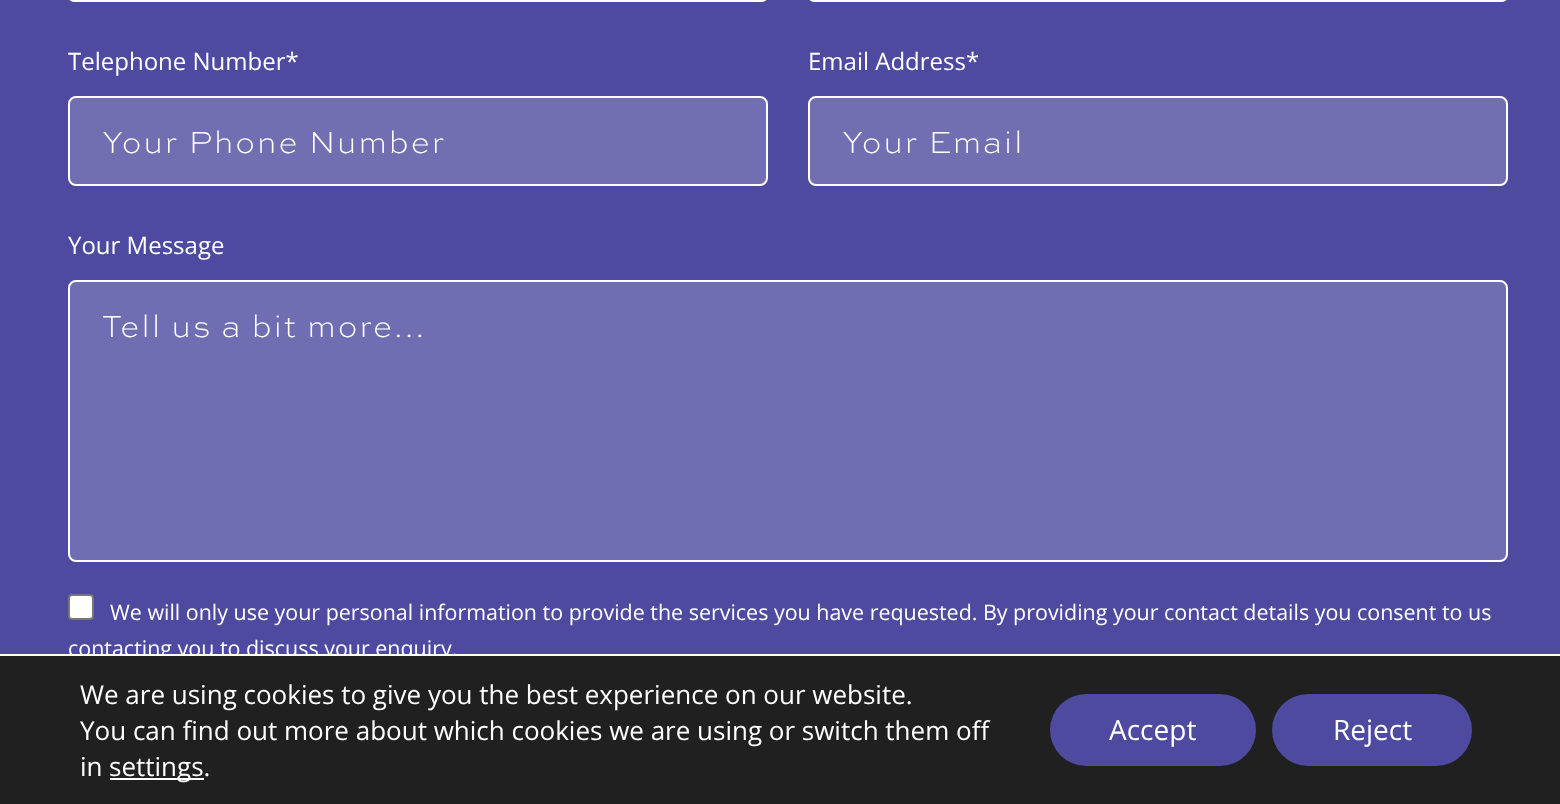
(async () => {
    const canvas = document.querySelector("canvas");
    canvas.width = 1560;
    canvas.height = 804;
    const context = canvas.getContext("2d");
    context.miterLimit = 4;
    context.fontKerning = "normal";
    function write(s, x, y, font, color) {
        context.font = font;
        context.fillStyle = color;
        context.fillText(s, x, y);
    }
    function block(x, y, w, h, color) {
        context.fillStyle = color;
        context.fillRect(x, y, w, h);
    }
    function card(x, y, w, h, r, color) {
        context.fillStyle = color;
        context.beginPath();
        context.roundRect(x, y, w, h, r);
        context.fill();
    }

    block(0, 0, 1560, 804, "rgb(77, 74, 159)");
    context.beginPath();
    context.roundRect(69, -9, 698, 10, 7);
    context.strokeStyle = "rgb(255, 255, 255)";
    context.lineWidth = 2;
    context.stroke();
    context.beginPath();
    context.roundRect(809, -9, 698, 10, 7);
    context.stroke();
    write("Telephone Number*", 68, 70, "24px Open Sans", "rgb(255, 255, 255)");
    context.fillStyle = "rgb(113, 110, 178)";
    context.beginPath();
    context.roundRect(69, 97, 698, 88, 7);
    context.fill();
    context.stroke();
    context.letterSpacing = "2px";
    write("Your Phone Number", 102, 153, "300 32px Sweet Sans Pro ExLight", "rgb(255, 255, 255)");
    context.letterSpacing = "0px";
    write("Email Address*", 808, 70, "24px Open Sans", "rgb(255, 255, 255)");
    context.fillStyle = "rgb(113, 110, 178)";
    context.beginPath();
    context.roundRect(809, 97, 698, 88, 7);
    context.fill();
    context.stroke();
    context.letterSpacing = "2px";
    write("Your Email", 842, 153, "300 32px Sweet Sans Pro ExLight", "rgb(255, 255, 255)");
    context.letterSpacing = "0px";
    write("Your Message", 68, 254, "24px Open Sans", "rgb(255, 255, 255)");
    context.fillStyle = "rgb(112, 110, 179)";
    context.beginPath();
    context.roundRect(69, 281, 1438, 280, 7);
    context.fill();
    context.stroke();
    context.letterSpacing = "2px";
    write("Tell us a bit more...", 102, 337, "300 32px Sweet Sans Pro ExLight", "rgb(255, 255, 255)");
    context.beginPath();
    context.roundRect(69, 595, 24, 24, 3);
    context.fill();
    context.strokeStyle = "rgb(118, 118, 118)";
    context.stroke();
    context.letterSpacing = "0px";
    write("We will only use your personal information to provide the services you have requested. By providing your contact details you consent to us", 110, 620, "21.45px Open Sans", "rgb(255, 255, 255)");
    write("contacting you to discuss your enquiry.", 68, 656, "21.45px Open Sans", "rgb(255, 255, 255)");
    block(0, 656, 1560, 148, "rgb(32, 32, 32)");
    block(0, 654, 1560, 2, "rgb(255, 255, 255)");
    write("We are using cookies to give you the best experience on our website.", 80, 704, "26px Open Sans", "rgb(255, 255, 255)");
    write("You can find out more about which cookies we are using or switch them off", 80, 740, "26px Open Sans", "rgb(255, 255, 255)");
    write("in", 80, 776, "26px Open Sans", "rgb(255, 255, 255)");
    block(110, 778, 94, 2, "rgb(255, 255, 255)");
    write("settings.", 109, 776, "26px Open Sans", "rgb(255, 255, 255)");
    card(1050, 694, 206, 72, 36, "rgb(77, 74, 159)");
    write("Accept", 1109, 740, "28px Open Sans", "rgb(255, 255, 255)");
    card(1272, 694, 200, 72, 36, "rgb(77, 74, 159)");
    write("Reject", 1333, 740, "28px Open Sans", "rgb(255, 255, 255)");
})();
